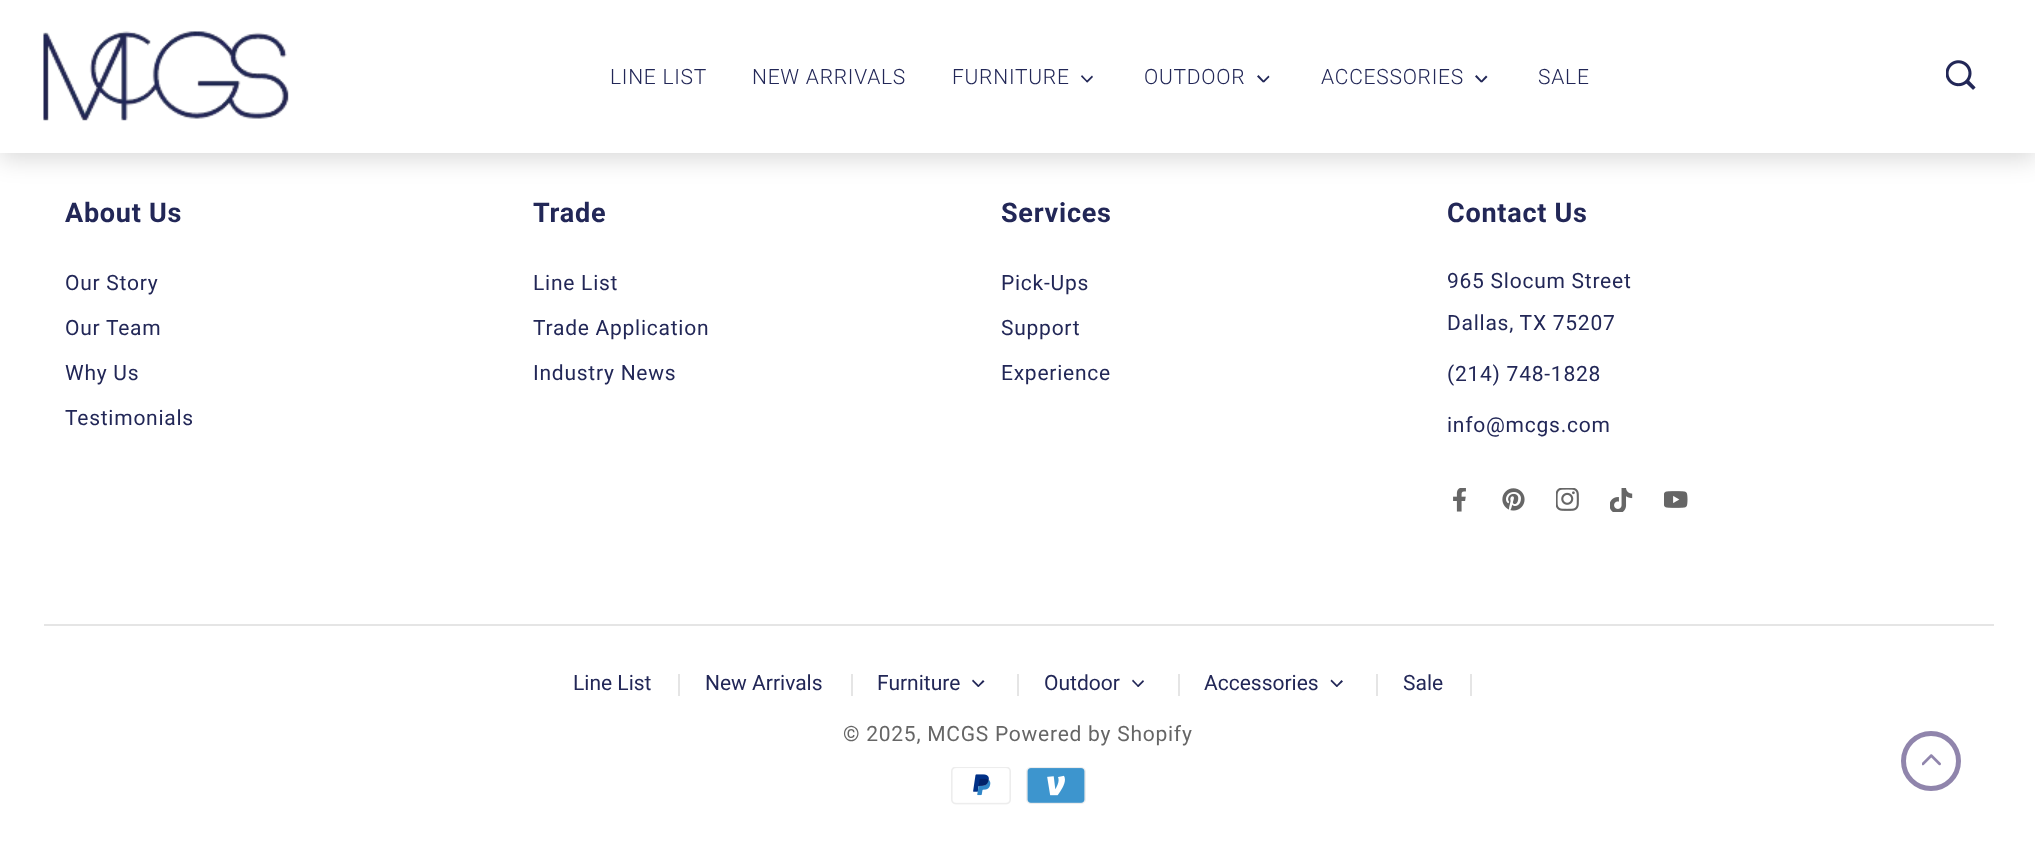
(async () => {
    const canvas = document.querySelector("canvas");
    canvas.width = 2035;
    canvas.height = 850;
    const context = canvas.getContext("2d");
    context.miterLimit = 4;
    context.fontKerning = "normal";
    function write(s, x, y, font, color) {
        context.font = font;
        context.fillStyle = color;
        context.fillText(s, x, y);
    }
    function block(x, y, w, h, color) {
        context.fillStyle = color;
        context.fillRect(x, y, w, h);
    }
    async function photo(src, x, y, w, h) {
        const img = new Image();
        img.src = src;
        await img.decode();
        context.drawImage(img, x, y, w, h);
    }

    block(0, 0, 2035, 850, "rgb(255, 255, 255)");
    context.fillStyle = "rgba(0, 0, 0, 0.15)";
    context.filter = "blur(12px)";
    context.beginPath();
    context.rect(0, 6, 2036, 153);
    context.fill();
    context.filter = "none";
    block(0, 0, 2035, 153, "rgb(255, 255, 255)");
    await photo("media/1.png", 43, 31, 246, 90);
    context.letterSpacing = "0.75px";
    write("LINE LIST", 610, 84, "300 21px Roboto", "rgb(34, 39, 87)");
    write("NEW ARRIVALS", 752, 84, "300 21px Roboto", "rgb(34, 39, 87)");
    write("FURNITURE", 952, 84, "300 21px Roboto", "rgb(34, 39, 87)");
    context.beginPath();
    context.moveTo(1092, 75.5);
    context.lineTo(1093, 77);
    context.lineTo(1087.5, 82.5);
    context.lineTo(1086, 81.5);
    context.closePath();
    context.fill();
    context.beginPath();
    context.moveTo(1082, 75);
    context.lineTo(1088, 81.5);
    context.lineTo(1087, 82.5);
    context.lineTo(1081, 76.5);
    context.closePath();
    context.fill();
    write("OUTDOOR", 1144, 84, "300 21px Roboto", "rgb(34, 39, 87)");
    context.beginPath();
    context.moveTo(1268.5, 75.5);
    context.lineTo(1269.5, 77);
    context.lineTo(1264, 82.5);
    context.lineTo(1262.5, 81.5);
    context.closePath();
    context.fill();
    context.beginPath();
    context.moveTo(1258.5, 75);
    context.lineTo(1264.5, 81.5);
    context.lineTo(1263, 82.5);
    context.lineTo(1257, 76.5);
    context.closePath();
    context.fill();
    write("ACCESSORIES", 1321, 84, "300 21px Roboto", "rgb(34, 39, 87)");
    context.beginPath();
    context.moveTo(1486, 75.5);
    context.lineTo(1487.5, 77);
    context.lineTo(1482, 82.5);
    context.lineTo(1480.5, 81.5);
    context.closePath();
    context.fill();
    context.beginPath();
    context.moveTo(1476.5, 75);
    context.lineTo(1482.5, 81.5);
    context.lineTo(1481, 82.5);
    context.lineTo(1475, 76.5);
    context.closePath();
    context.fill();
    write("SALE", 1538, 84, "300 21px Roboto", "rgb(34, 39, 87)");
    await photo("media/2.png", 1946, 60, 30, 30);
    block(44, 624, 1950, 2, "rgb(229, 229, 229)");
    write("About Us", 65, 222, "bold 27px Roboto", "rgb(34, 39, 87)");
    write("Our Story", 65, 290, "21px Roboto", "rgb(34, 39, 87)");
    write("Our Team", 65, 335, "21px Roboto", "rgb(34, 39, 87)");
    write("Why Us", 65, 380, "21px Roboto", "rgb(34, 39, 87)");
    write("Testimonials", 65, 425, "21px Roboto", "rgb(34, 39, 87)");
    write("Trade", 533, 222, "bold 27px Roboto", "rgb(34, 39, 87)");
    write("Line List", 533, 290, "21px Roboto", "rgb(34, 39, 87)");
    write("Trade Application", 533, 335, "21px Roboto", "rgb(34, 39, 87)");
    write("Industry News", 533, 380, "21px Roboto", "rgb(34, 39, 87)");
    write("Services", 1001, 222, "bold 27px Roboto", "rgb(34, 39, 87)");
    write("Pick-Ups", 1001, 290, "21px Roboto", "rgb(34, 39, 87)");
    write("Support", 1001, 335, "21px Roboto", "rgb(34, 39, 87)");
    write("Experience", 1001, 380, "21px Roboto", "rgb(34, 39, 87)");
    write("Contact Us", 1447, 222, "bold 27px Roboto", "rgb(34, 39, 87)");
    write("965 Slocum Street", 1447, 288, "21px Roboto", "rgb(34, 39, 87)");
    write("Dallas, TX 75207", 1447, 330, "21px Roboto", "rgb(34, 39, 87)");
    write("(214) 748-1828", 1447, 381, "21px Roboto", "rgb(34, 39, 87)");
    write("info@mcgs.com", 1447, 432, "21px Roboto", "rgb(34, 39, 87)");
    await photo("media/3.png", 1453, 488, 13, 24);
    await photo("media/4.png", 1502, 488, 23, 23);
    await photo("media/5.png", 1556, 488, 23, 23);
    await photo("media/6.png", 1610, 488, 23, 24);
    await photo("media/7.png", 1664, 491, 24, 17);
    context.letterSpacing = "0px";
    write("Line List", 573, 690, "21px Roboto", "rgb(34, 39, 87)");
    block(678, 674, 2, 22, "rgb(229, 229, 229)");
    write("New Arrivals", 705, 690, "21px Roboto", "rgb(34, 39, 87)");
    block(851, 674, 2, 22, "rgb(229, 229, 229)");
    write("Furniture", 877, 690, "21px Roboto", "rgb(34, 39, 87)");
    context.beginPath();
    context.moveTo(983, 680);
    context.lineTo(984.5, 681.5);
    context.lineTo(978.5, 687);
    context.lineTo(977.5, 686);
    context.closePath();
    context.fill();
    context.beginPath();
    context.moveTo(973, 679.5);
    context.lineTo(979.5, 686);
    context.lineTo(978, 687);
    context.lineTo(972, 681);
    context.closePath();
    context.fill();
    block(1017, 674, 2, 22, "rgb(229, 229, 229)");
    write("Outdoor", 1044, 690, "21px Roboto", "rgb(34, 39, 87)");
    context.beginPath();
    context.moveTo(1143, 680);
    context.lineTo(1144, 681.5);
    context.lineTo(1138.5, 687);
    context.lineTo(1137, 686);
    context.closePath();
    context.fill();
    context.beginPath();
    context.moveTo(1133, 679.5);
    context.lineTo(1139, 686);
    context.lineTo(1138, 687);
    context.lineTo(1132, 681);
    context.closePath();
    context.fill();
    block(1178, 674, 2, 22, "rgb(229, 229, 229)");
    write("Accessories", 1204, 690, "21px Roboto", "rgb(34, 39, 87)");
    context.beginPath();
    context.moveTo(1341.5, 680);
    context.lineTo(1343, 681.5);
    context.lineTo(1337, 687);
    context.lineTo(1336, 686);
    context.closePath();
    context.fill();
    context.beginPath();
    context.moveTo(1331.5, 679.5);
    context.lineTo(1338, 686);
    context.lineTo(1336.5, 687);
    context.lineTo(1330.5, 681);
    context.closePath();
    context.fill();
    block(1376, 674, 2, 22, "rgb(229, 229, 229)");
    write("Sale", 1403, 690, "21px Roboto", "rgb(34, 39, 87)");
    block(1470, 674, 2, 22, "rgb(229, 229, 229)");
    context.letterSpacing = "0.75px";
    write("© 2025, MCGS Powered by Shopify", 843, 741, "21px Roboto", "rgb(102, 102, 102)");
    await photo("media/8.png", 951, 767, 60, 38);
    await photo("media/9.png", 1026, 767, 60, 37);
    context.beginPath();
    context.arc(1931, 761, 27.5, 0, Math.PI * 2);
    context.strokeStyle = "rgb(144, 133, 172)";
    context.lineWidth = 5;
    context.stroke();
    await photo("media/10.png", 1922, 754, 19, 12);
})();
